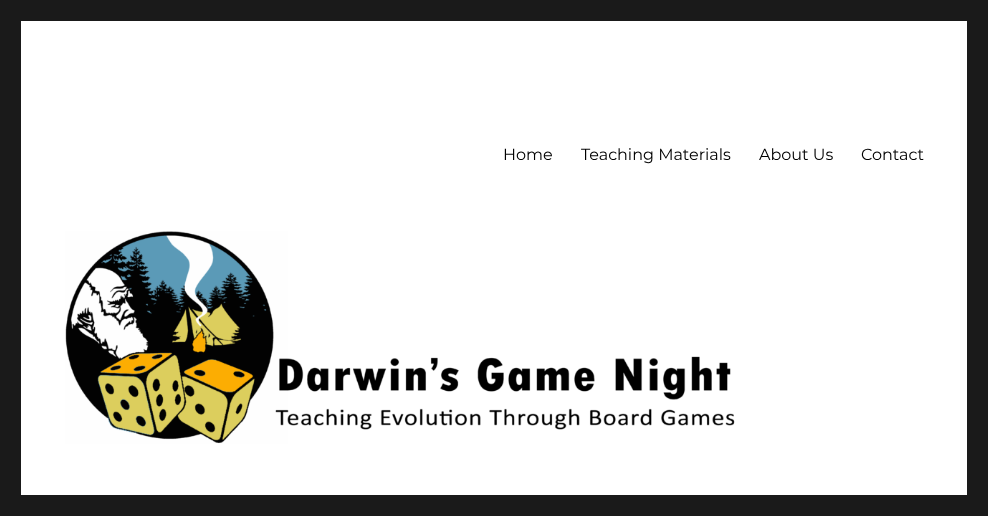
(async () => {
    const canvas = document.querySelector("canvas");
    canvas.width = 988;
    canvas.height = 516;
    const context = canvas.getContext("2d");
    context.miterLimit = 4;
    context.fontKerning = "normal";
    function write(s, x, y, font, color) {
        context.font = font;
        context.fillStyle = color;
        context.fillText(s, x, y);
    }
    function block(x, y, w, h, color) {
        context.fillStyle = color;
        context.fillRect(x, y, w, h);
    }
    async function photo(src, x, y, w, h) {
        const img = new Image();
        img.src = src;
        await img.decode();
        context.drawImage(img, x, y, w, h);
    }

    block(0, 0, 988, 516, "rgb(26, 26, 26)");
    block(21, 21, 946, 474, "rgb(255, 255, 255)");
    write("Home", 503, 160, "16px Montserrat", "rgb(0, 0, 0)");
    write("Teaching Materials", 581, 160, "16px Montserrat", "rgb(0, 0, 0)");
    write("About Us", 759, 160, "16px Montserrat", "rgb(0, 0, 0)");
    write("Contact", 861, 160, "16px Montserrat", "rgb(0, 0, 0)");
    await photo("media/1.png", 65, 231, 670, 213);
})();
